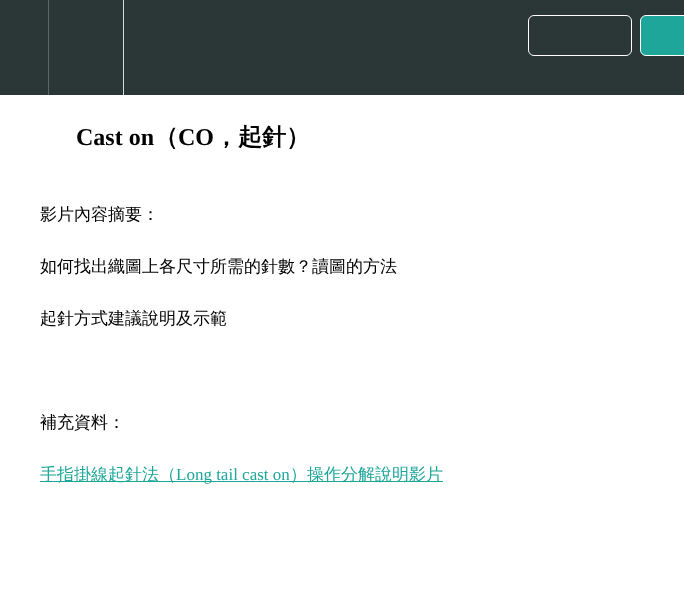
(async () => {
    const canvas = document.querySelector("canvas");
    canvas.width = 684;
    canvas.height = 607;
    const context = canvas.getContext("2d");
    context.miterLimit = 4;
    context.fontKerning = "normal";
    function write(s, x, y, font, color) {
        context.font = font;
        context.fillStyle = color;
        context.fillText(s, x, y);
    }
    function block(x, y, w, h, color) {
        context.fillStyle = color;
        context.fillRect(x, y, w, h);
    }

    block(0, 0, 684, 607, "rgb(255, 255, 255)");
    block(0, 0, 684, 95, "rgb(43, 54, 54)");
    block(123, 0, 1, 95, "rgb(215, 218, 219)");
    block(48, 0, 1, 95, "rgb(95, 103, 104)");
    context.beginPath();
    context.roundRect(528.5, 15.5, 103, 40, 5.5);
    context.strokeStyle = "rgb(255, 255, 255)";
    context.stroke();
    context.fillStyle = "rgb(30, 166, 154)";
    context.beginPath();
    context.roundRect(640.5, 15.5, 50, 40, 5.5);
    context.fill();
    context.stroke();
    write("Cast on", 76, 145, "bold 24px Liberation Serif", "rgb(0, 0, 0)");
    write("（", 154, 145, "bold 24px WenQuanYi Zen Hei", "rgb(0, 0, 0)");
    write("CO", 178, 145, "bold 24px Liberation Serif", "rgb(0, 0, 0)");
    write("，起針）", 214, 145, "bold 24px WenQuanYi Zen Hei", "rgb(0, 0, 0)");
    write("影片內容摘要：", 40, 220, "500 17px WenQuanYi Zen Hei", "rgb(0, 0, 0)");
    write("如何找出織圖上各尺寸所需的針數？讀圖的方法", 40, 272, "500 17px WenQuanYi Zen Hei", "rgb(0, 0, 0)");
    write("起針方式建議說明及示範", 40, 324, "500 17px WenQuanYi Zen Hei", "rgb(0, 0, 0)");
    write("補充資料：", 40, 428, "500 17px WenQuanYi Zen Hei", "rgb(0, 0, 0)");
    block(40, 481, 403, 1, "rgb(30, 166, 154)");
    write("手指掛線起針法（", 40, 480, "500 17px WenQuanYi Zen Hei", "rgb(30, 166, 154)");
    write("Long tail cast on", 176, 480, "17px Liberation Serif", "rgb(30, 166, 154)");
    write("）操作分解說明影片", 290, 480, "500 17px WenQuanYi Zen Hei", "rgb(30, 166, 154)");
})();
